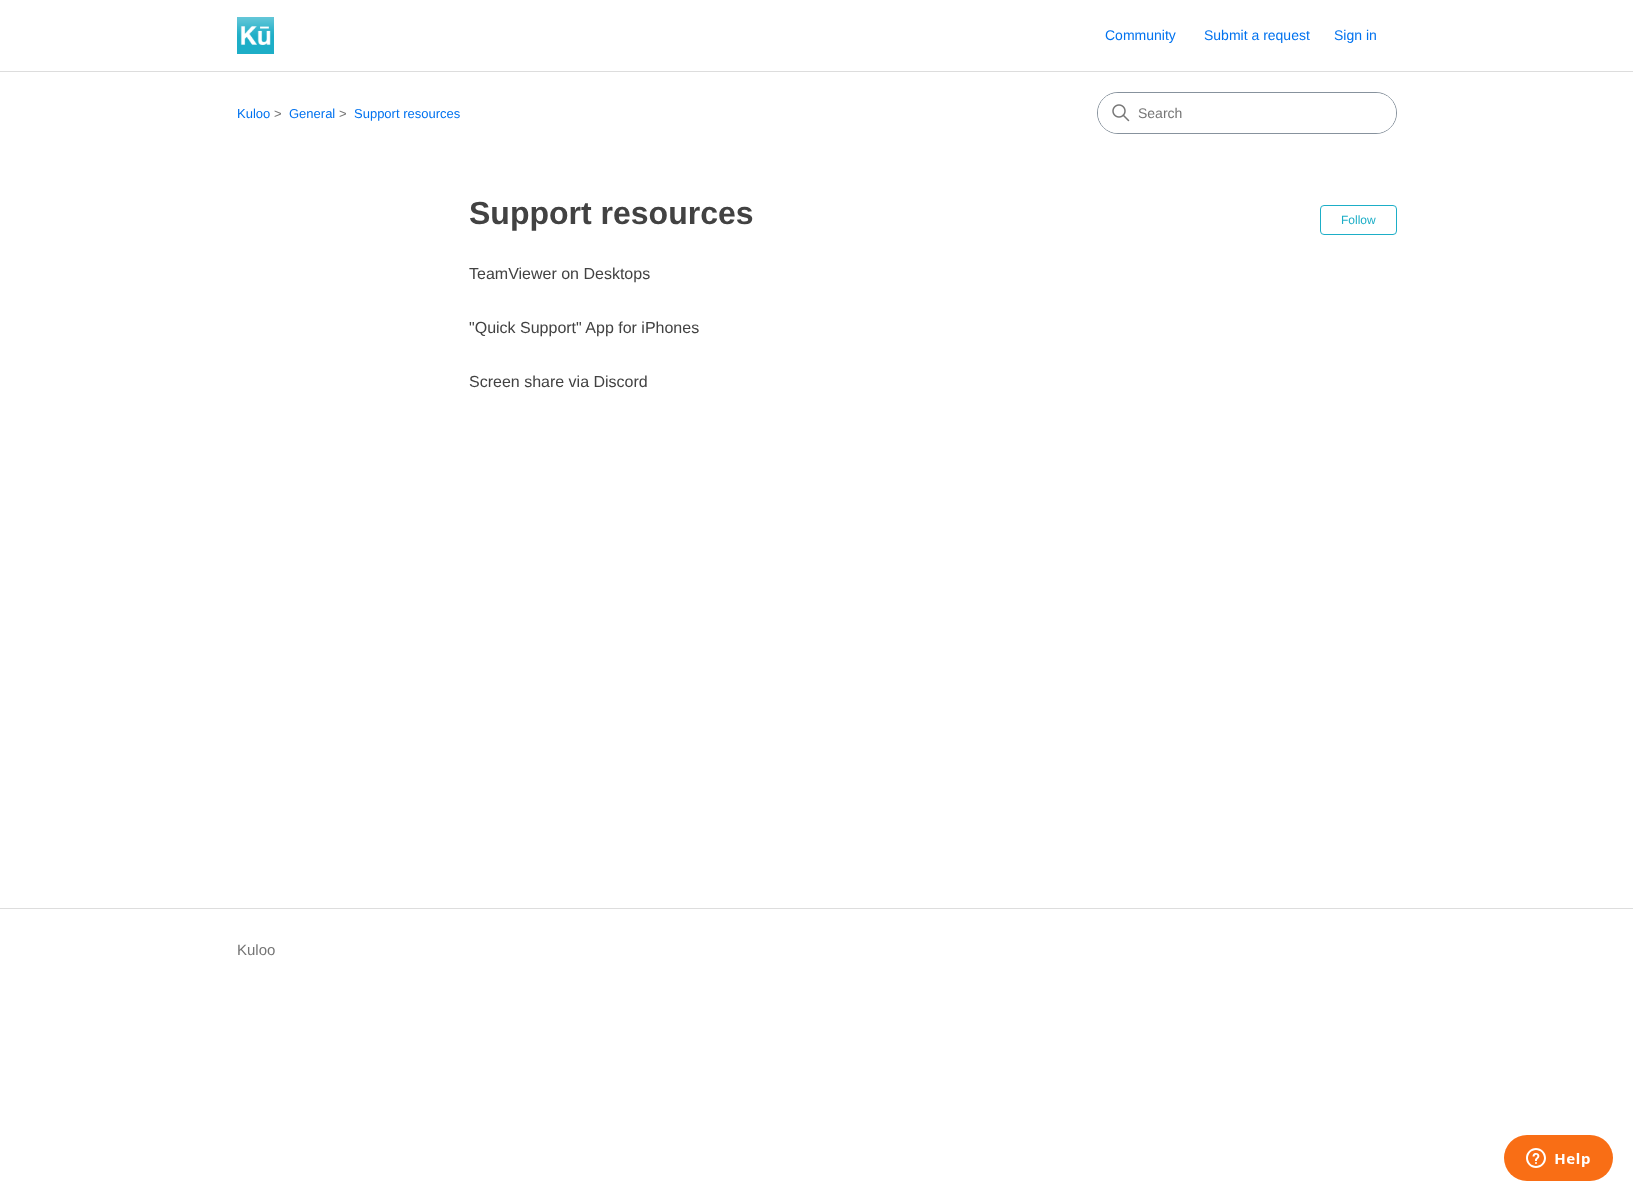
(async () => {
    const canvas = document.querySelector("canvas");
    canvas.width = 1633;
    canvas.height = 1195;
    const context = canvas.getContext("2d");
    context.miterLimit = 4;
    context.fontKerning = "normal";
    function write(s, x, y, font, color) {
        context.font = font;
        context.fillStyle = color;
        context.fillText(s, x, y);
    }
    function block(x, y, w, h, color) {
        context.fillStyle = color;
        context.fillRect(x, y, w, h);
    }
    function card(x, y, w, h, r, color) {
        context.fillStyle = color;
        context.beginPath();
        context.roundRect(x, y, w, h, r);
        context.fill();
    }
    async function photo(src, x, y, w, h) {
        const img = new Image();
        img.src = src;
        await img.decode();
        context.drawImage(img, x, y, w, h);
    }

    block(0, 0, 1633, 1195, "rgb(255, 255, 255)");
    await photo("media/1.png", 237, 17, 37, 37);
    write("Community", 1105, 40, "14px Liberation Sans", "rgb(0, 114, 239)");
    write("Submit a request", 1204, 40, "14px Liberation Sans", "rgb(0, 114, 239)");
    write("Sign in", 1334, 40, "14px Liberation Sans", "rgb(0, 114, 239)");
    block(0, 71, 1633, 1, "rgb(221, 221, 221)");
    write("Kuloo", 237, 118, "13px Liberation Sans", "rgb(0, 114, 239)");
    write(">", 274, 118, "13px Liberation Sans", "rgb(117, 117, 117)");
    write("General", 289, 118, "13px Liberation Sans", "rgb(0, 114, 239)");
    write(">", 339, 118, "13px Liberation Sans", "rgb(117, 117, 117)");
    write("Support resources", 354, 118, "13px Liberation Sans", "rgb(0, 114, 239)");
    context.beginPath();
    context.roundRect(1097.5, 92.5, 299, 41, 20.5);
    context.strokeStyle = "rgb(135, 146, 157)";
    context.stroke();
    card(1098, 93, 298, 40, 20, "rgb(255, 255, 255)");
    await photo("media/2.png", 1112, 104, 18, 18);
    write("Search", 1138, 118, "14px Liberation Sans", "rgb(117, 117, 117)");
    write("Support resources", 469, 224, "bold 32px Liberation Sans", "rgb(66, 66, 66)");
    context.beginPath();
    context.roundRect(1320.5, 205.5, 76, 29, 3.5);
    context.strokeStyle = "rgb(29, 174, 199)";
    context.stroke();
    write("Follow", 1341, 224, "12px Liberation Sans", "rgb(29, 174, 199)");
    write("TeamViewer on Desktops", 469, 279, "16px Liberation Sans", "rgb(66, 66, 66)");
    write("\"Quick Support\" App for iPhones", 469, 333, "16px Liberation Sans", "rgb(66, 66, 66)");
    write("Screen share via Discord", 469, 387, "16px Liberation Sans", "rgb(66, 66, 66)");
    block(0, 908, 1633, 1, "rgb(221, 221, 221)");
    write("Kuloo", 237, 955, "15px Liberation Sans", "rgb(117, 117, 117)");
    await photo("media/3.png", 1504, 1135, 109, 46);
})();
